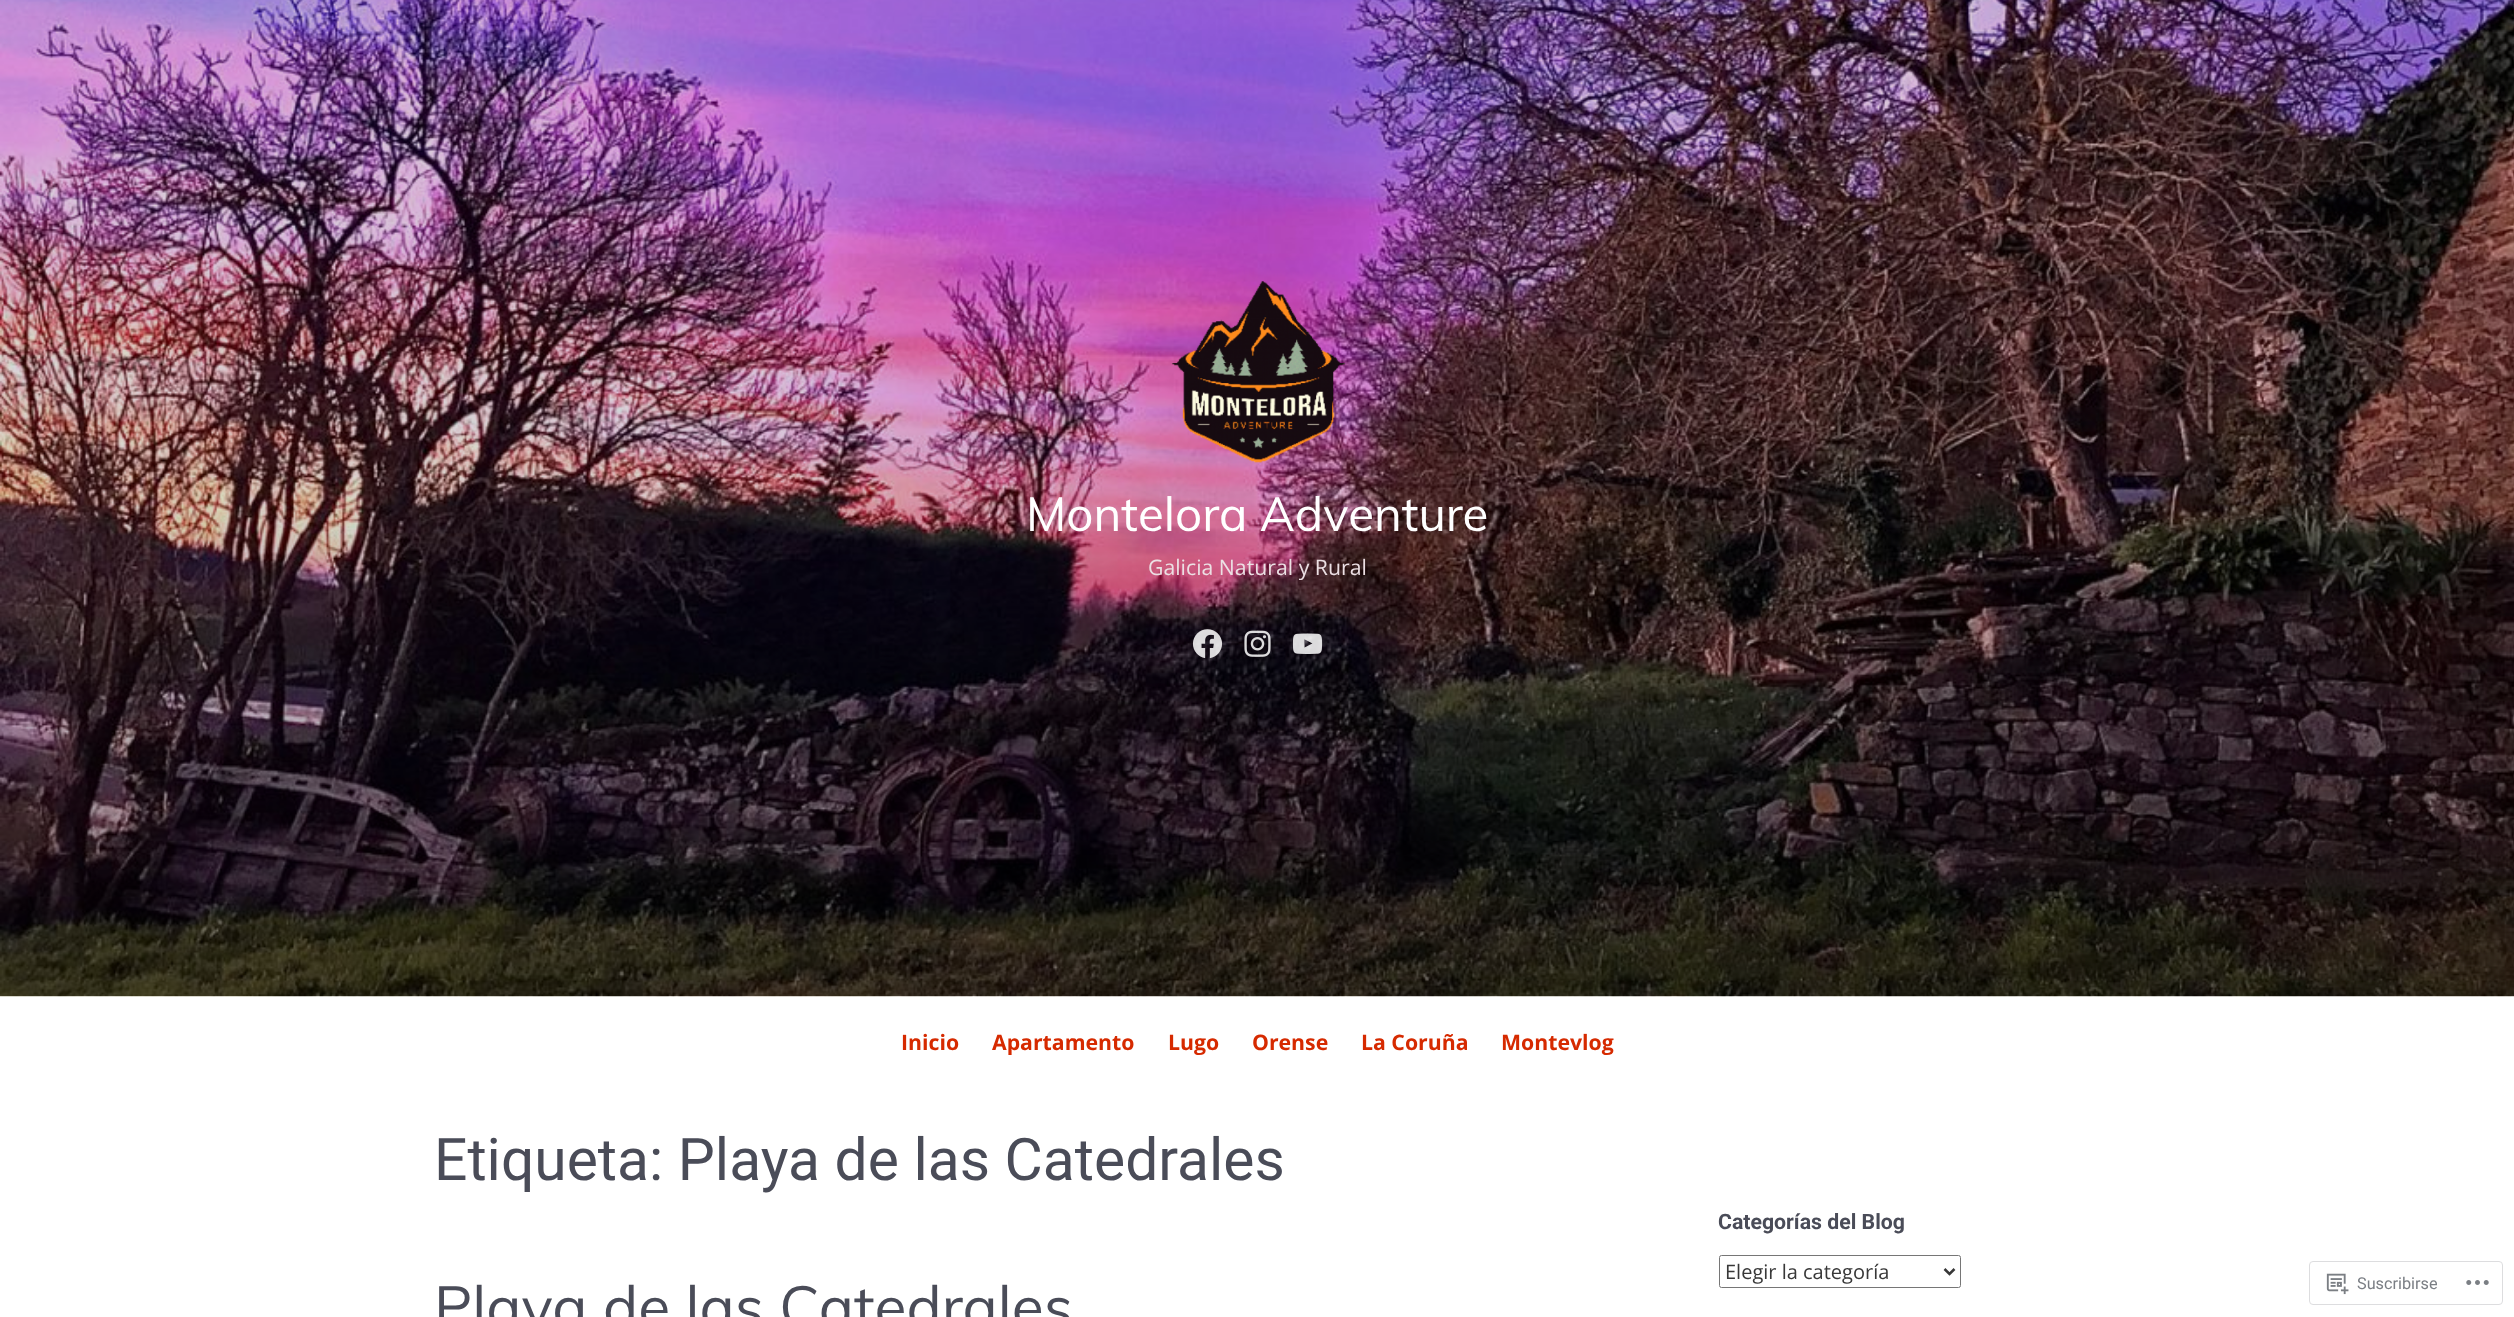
(async () => {
    const canvas = document.querySelector("canvas");
    canvas.width = 2514;
    canvas.height = 1317;
    const context = canvas.getContext("2d");
    context.miterLimit = 4;
    context.fontKerning = "normal";
    function write(s, x, y, font, color) {
        context.font = font;
        context.fillStyle = color;
        context.fillText(s, x, y);
    }
    function block(x, y, w, h, color) {
        context.fillStyle = color;
        context.fillRect(x, y, w, h);
    }
    async function photo(src, x, y, w, h) {
        const img = new Image();
        img.src = src;
        await img.decode();
        context.drawImage(img, x, y, w, h);
    }

    block(0, 0, 2514, 1317, "rgb(255, 255, 255)");
    await photo("media/1.png", 0, 0, 2514, 997);
    await photo("media/2.png", 1171, 281, 174, 182);
    write("Montelora Adventure", 1026, 531, "47.5px Muli", "rgb(255, 255, 255)");
    write("Galicia Natural y Rural", 1148, 575, "21.25px Open Sans", "rgb(236, 224, 228)");
    await photo("media/3.png", 1192, 629, 31, 30);
    await photo("media/4.png", 1244, 630, 27, 27);
    await photo("media/5.png", 1292, 633, 31, 21);
    write("Inicio", 901, 1050, "bold 21.25px Open Sans", "rgb(214, 42, 0)");
    write("Apartamento", 992, 1050, "bold 21.25px Open Sans", "rgb(214, 42, 0)");
    write("Lugo", 1168, 1050, "bold 21.25px Open Sans", "rgb(214, 42, 0)");
    write("Orense", 1252, 1050, "bold 21.25px Open Sans", "rgb(214, 42, 0)");
    write("La Coruña", 1361, 1050, "bold 21.25px Open Sans", "rgb(214, 42, 0)");
    write("Montevlog", 1501, 1050, "bold 21.25px Open Sans", "rgb(214, 42, 0)");
    write("Etiqueta: Playa de las Catedrales", 434, 1180, "58.75px Roboto", "rgb(74, 76, 88)");
    write("Playa de las Catedrales", 434, 1328, "58.75px Muli", "rgb(74, 76, 88)");
    write("Categorías del Blog", 1718, 1229, "bold 21.25px Roboto", "rgb(74, 76, 88)");
    context.beginPath();
    context.roundRect(1719.5, 1255.5, 241, 32, 2);
    context.strokeStyle = "rgb(118, 118, 118)";
    context.stroke();
    context.beginPath();
    context.moveTo(1944.5, 1269);
    context.lineTo(1949.5, 1274);
    context.lineTo(1954.5, 1269);
    context.strokeStyle = "rgb(56, 56, 56)";
    context.lineWidth = 2.5;
    context.stroke();
    write("Elegir la categoría", 1725, 1279, "20px Open Sans", "rgb(56, 56, 56)");
    context.beginPath();
    context.roundRect(2309.5, 1261.5, 193, 43, 3.5);
    context.strokeStyle = "rgb(221, 221, 223)";
    context.lineWidth = 1;
    context.stroke();
    await photo("media/6.png", 2326, 1273, 23, 22);
    write("Suscribirse", 2357, 1289, "16.25px Roboto", "rgb(123, 127, 133)");
    await photo("media/7.png", 2466, 1280, 23, 5);
})();
